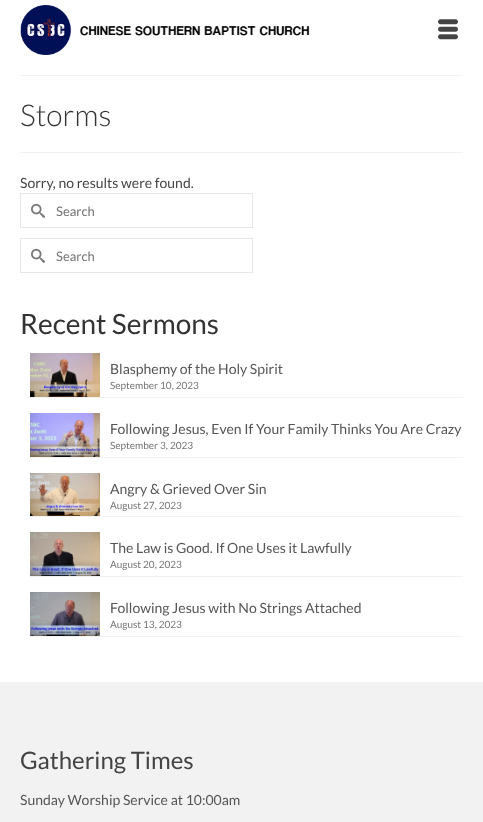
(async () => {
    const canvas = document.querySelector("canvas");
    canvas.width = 483;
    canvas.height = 822;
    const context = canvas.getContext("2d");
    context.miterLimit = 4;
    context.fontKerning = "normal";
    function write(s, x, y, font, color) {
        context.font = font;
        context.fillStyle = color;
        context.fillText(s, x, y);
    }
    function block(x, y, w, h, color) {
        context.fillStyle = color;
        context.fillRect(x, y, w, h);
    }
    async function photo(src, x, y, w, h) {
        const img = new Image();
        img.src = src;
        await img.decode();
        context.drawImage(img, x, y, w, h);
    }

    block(0, 0, 483, 822, "rgb(255, 255, 255)");
    await photo("media/1.png", 20, 5, 290, 50);
    await photo("media/2.png", 438, 19, 20, 21);
    block(20, 75, 443, 1, "rgb(242, 242, 242)");
    block(20, 152, 443, 1, "rgb(242, 242, 242)");
    write("Storms", 20, 126, "300 30px Lato", "rgb(51, 51, 51)");
    write("Sorry, no results were found.", 20, 188, "14px Lato", "rgb(68, 68, 68)");
    context.strokeStyle = "rgb(231, 231, 231)";
    context.strokeRect(20.5, 193.5, 232, 34);
    await photo("media/3.png", 31, 203, 14, 15);
    write("Search", 56, 216, "13px Lato", "rgb(117, 117, 117)");
    context.strokeRect(20.5, 238.5, 232, 34);
    await photo("media/3.png", 31, 248, 14, 15);
    write("Search", 56, 261, "13px Lato", "rgb(117, 117, 117)");
    write("Recent Sermons", 20, 334, "28px Lato", "rgb(51, 51, 51)");
    block(30, 397, 433, 1, "rgb(242, 242, 242)");
    await photo("media/4.png", 30, 353, 70, 44);
    write("Blasphemy of the Holy Spirit", 110, 374, "14px Lato", "rgb(85, 85, 85)");
    write("September 10, 2023", 110, 389, "10px Lato", "rgb(117, 117, 117)");
    block(30, 457, 433, 1, "rgb(242, 242, 242)");
    await photo("media/5.png", 30, 413, 70, 44);
    write("Following Jesus, Even If Your Family Thinks You Are Crazy", 110, 434, "14px Lato", "rgb(85, 85, 85)");
    write("September 3, 2023", 110, 449, "10px Lato", "rgb(117, 117, 117)");
    block(30, 516, 433, 1, "rgb(242, 242, 242)");
    await photo("media/6.png", 30, 473, 70, 43);
    write("Angry & Grieved Over Sin", 110, 494, "14px Lato", "rgb(85, 85, 85)");
    write("August 27, 2023", 110, 509, "10px Lato", "rgb(117, 117, 117)");
    block(30, 576, 433, 1, "rgb(242, 242, 242)");
    await photo("media/7.png", 30, 532, 70, 44);
    write("The Law is Good. If One Uses it Lawfully", 110, 553, "14px Lato", "rgb(85, 85, 85)");
    write("August 20, 2023", 110, 568, "10px Lato", "rgb(117, 117, 117)");
    block(30, 636, 433, 1, "rgb(242, 242, 242)");
    await photo("media/8.png", 30, 592, 70, 44);
    write("Following Jesus with No Strings Attached", 110, 613, "14px Lato", "rgb(85, 85, 85)");
    write("August 13, 2023", 110, 628, "10px Lato", "rgb(117, 117, 117)");
    block(0, 682, 483, 140, "rgb(242, 242, 242)");
    write("Gathering Times", 20, 769, "24px Lato", "rgb(68, 68, 68)");
    write("Sunday Worship Service at 10:00am", 20, 805, "14px Lato", "rgb(85, 85, 85)");
})();
